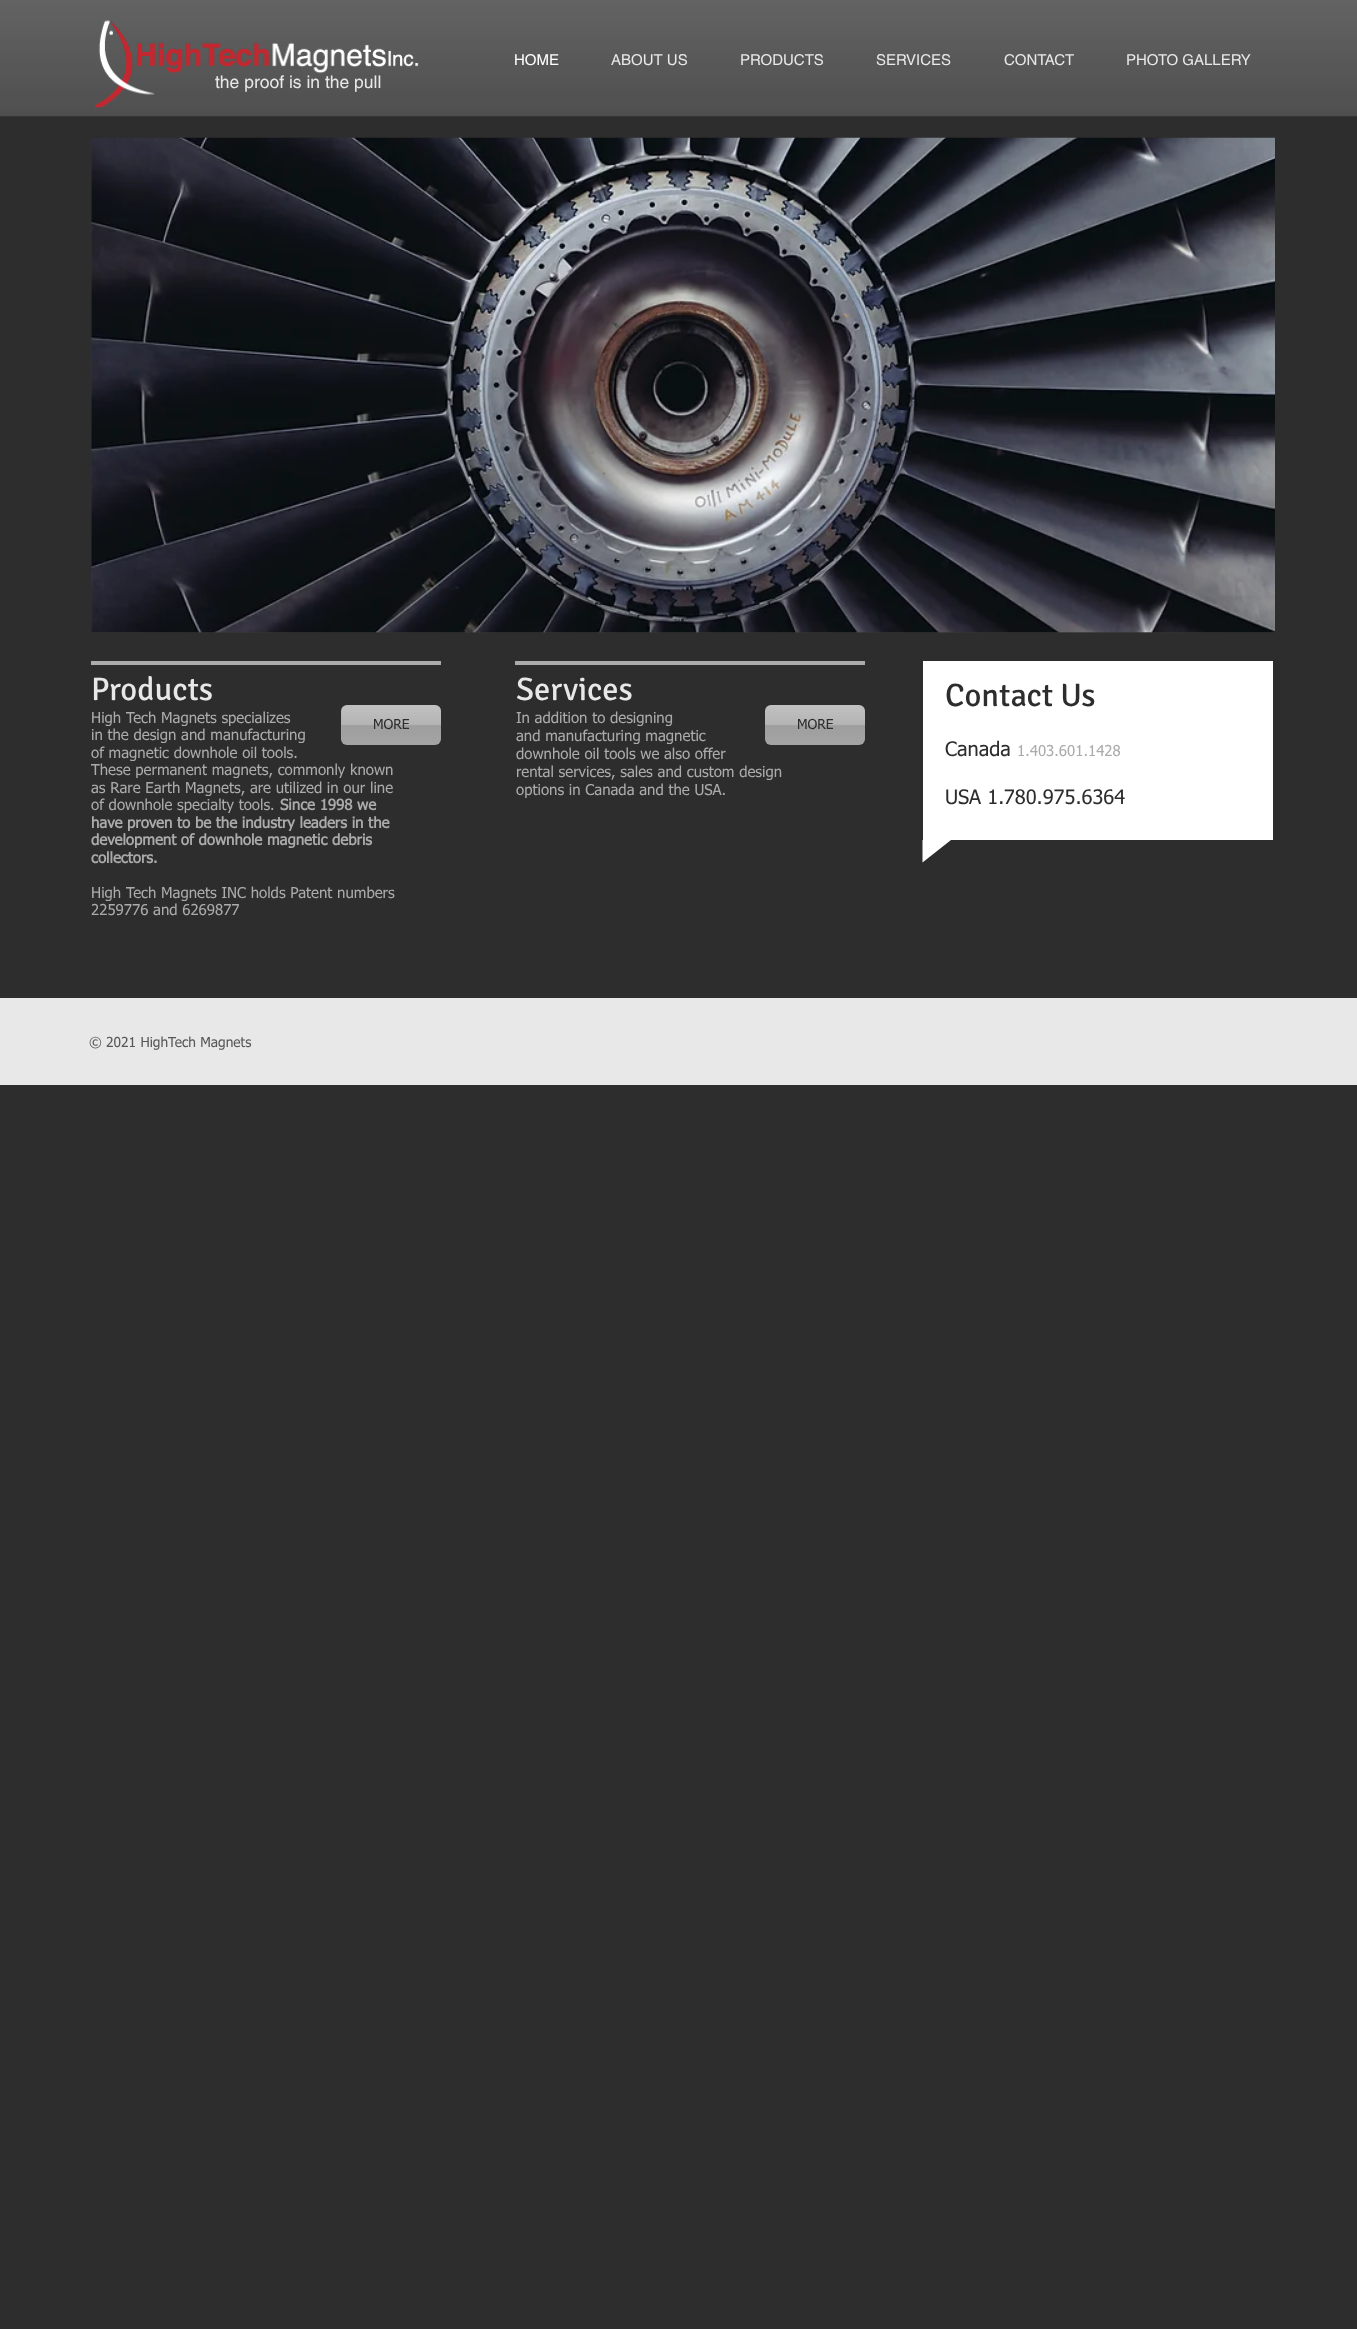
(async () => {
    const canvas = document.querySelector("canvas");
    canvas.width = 1357;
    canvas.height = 2329;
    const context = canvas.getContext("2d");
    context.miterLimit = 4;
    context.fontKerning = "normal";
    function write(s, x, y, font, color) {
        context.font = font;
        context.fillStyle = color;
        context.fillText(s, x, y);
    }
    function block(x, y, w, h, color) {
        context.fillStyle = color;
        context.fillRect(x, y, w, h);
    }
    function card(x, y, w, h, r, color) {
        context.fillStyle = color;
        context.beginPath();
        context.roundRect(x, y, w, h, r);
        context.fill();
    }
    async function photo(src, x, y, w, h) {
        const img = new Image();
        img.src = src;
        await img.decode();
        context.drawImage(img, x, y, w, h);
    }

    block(0, 0, 1357, 2329, "rgb(45, 45, 45)");
    await photo("media/1.png", 0, 0, 1357, 117);
    await photo("media/2.png", 94, 20, 325, 88);
    write("HOME", 514, 65, "15px helvetica", "rgb(255, 255, 255)");
    write("ABOUT US", 611, 65, "15px helvetica", "rgb(232, 232, 232)");
    write("PRODUCTS", 740, 65, "15px helvetica", "rgb(232, 232, 232)");
    write("SERVICES", 876, 65, "15px helvetica", "rgb(232, 232, 232)");
    write("CONTACT", 1004, 65, "15px helvetica", "rgb(232, 232, 232)");
    write("PHOTO GALLERY", 1126, 65, "15px helvetica", "rgb(232, 232, 232)");
    write("the proof is in the pull", 215, 88, "17.5px helvetica", "rgb(232, 232, 232)");
    block(91, 138, 1184, 495, "rgb(53, 53, 53)");
    await photo("media/3.png", 91, 137, 1184, 496);
    block(91, 661, 350, 4, "rgb(171, 171, 171)");
    block(515, 661, 350, 4, "rgb(171, 171, 171)");
    write("Products", 91, 700, "32.5px Signika", "rgb(232, 232, 232)");
    write("High Tech Magnets specializes", 91, 723, "15px tahoma", "rgb(171, 171, 171)");
    write("in the design and manufacturing", 91, 740, "15px tahoma", "rgb(171, 171, 171)");
    write("of magnetic downhole oil tools.", 91, 758, "15px tahoma", "rgb(171, 171, 171)");
    write("These permanent magnets, commonly known", 91, 775, "15px tahoma", "rgb(171, 171, 171)");
    write("as Rare Earth Magnets, are utilized in our line", 91, 793, "15px tahoma", "rgb(171, 171, 171)");
    write("of downhole specialty tools.", 91, 810, "15px tahoma", "rgb(171, 171, 171)");
    write("Since 1998 we", 280, 810, "bold 15px tahoma", "rgb(171, 171, 171)");
    write("have proven to be the industry leaders in the", 91, 828, "bold 15px tahoma", "rgb(171, 171, 171)");
    write("development of downhole magnetic debris", 91, 845, "bold 15px tahoma", "rgb(171, 171, 171)");
    write("collectors.", 91, 863, "bold 15px tahoma", "rgb(171, 171, 171)");
    write("High Tech Magnets INC holds Patent numbers", 91, 898, "15px tahoma", "rgb(171, 171, 171)");
    write("2259776 and 6269877", 91, 915, "15px tahoma", "rgb(171, 171, 171)");
    write("Services", 516, 700, "32.5px Signika", "rgb(232, 232, 232)");
    write("In addition to designing", 516, 723, "15px tahoma", "rgb(171, 171, 171)");
    write("and manufacturing magnetic", 516, 741, "15px tahoma", "rgb(171, 171, 171)");
    write("downhole oil tools we also offer", 516, 759, "15px tahoma", "rgb(171, 171, 171)");
    write("rental services, sales and custom design", 516, 777, "15px tahoma", "rgb(171, 171, 171)");
    write("options in Canada and the USA.", 516, 795, "15px tahoma", "rgb(171, 171, 171)");
    block(923, 661, 350, 179, "rgb(255, 255, 255)");
    write("Contact Us", 945, 706, "32.5px Signika", "rgb(45, 45, 45)");
    write("Canada", 945, 756, "20px tahoma", "rgb(45, 45, 45)");
    write("1.403.601.1428", 1017, 756, "15px tahoma", "rgb(171, 171, 171)");
    write("USA 1.780.975.6364", 945, 804, "20px tahoma", "rgb(45, 45, 45)");
    context.fillStyle = "rgb(255, 255, 255)";
    context.beginPath();
    context.moveTo(922.5, 840);
    context.lineTo(951, 840);
    context.lineTo(922.5, 862.5);
    context.closePath();
    context.fill();
    card(341, 705, 100, 40, 6, "rgb(171, 171, 171)");
    await photo("media/4.png", 341, 705, 100, 40);
    write("MORE", 373, 729, "13.75px tahoma", "rgb(45, 45, 45)");
    card(765, 705, 100, 40, 6, "rgb(171, 171, 171)");
    await photo("media/5.png", 765, 705, 100, 40);
    write("MORE", 797, 729, "13.75px tahoma", "rgb(45, 45, 45)");
    block(0, 998, 1357, 87, "rgb(232, 232, 232)");
    write("© 2021 HighTech Magnets", 89, 1047, "13.75px tahoma", "rgb(87, 87, 87)");
})();
